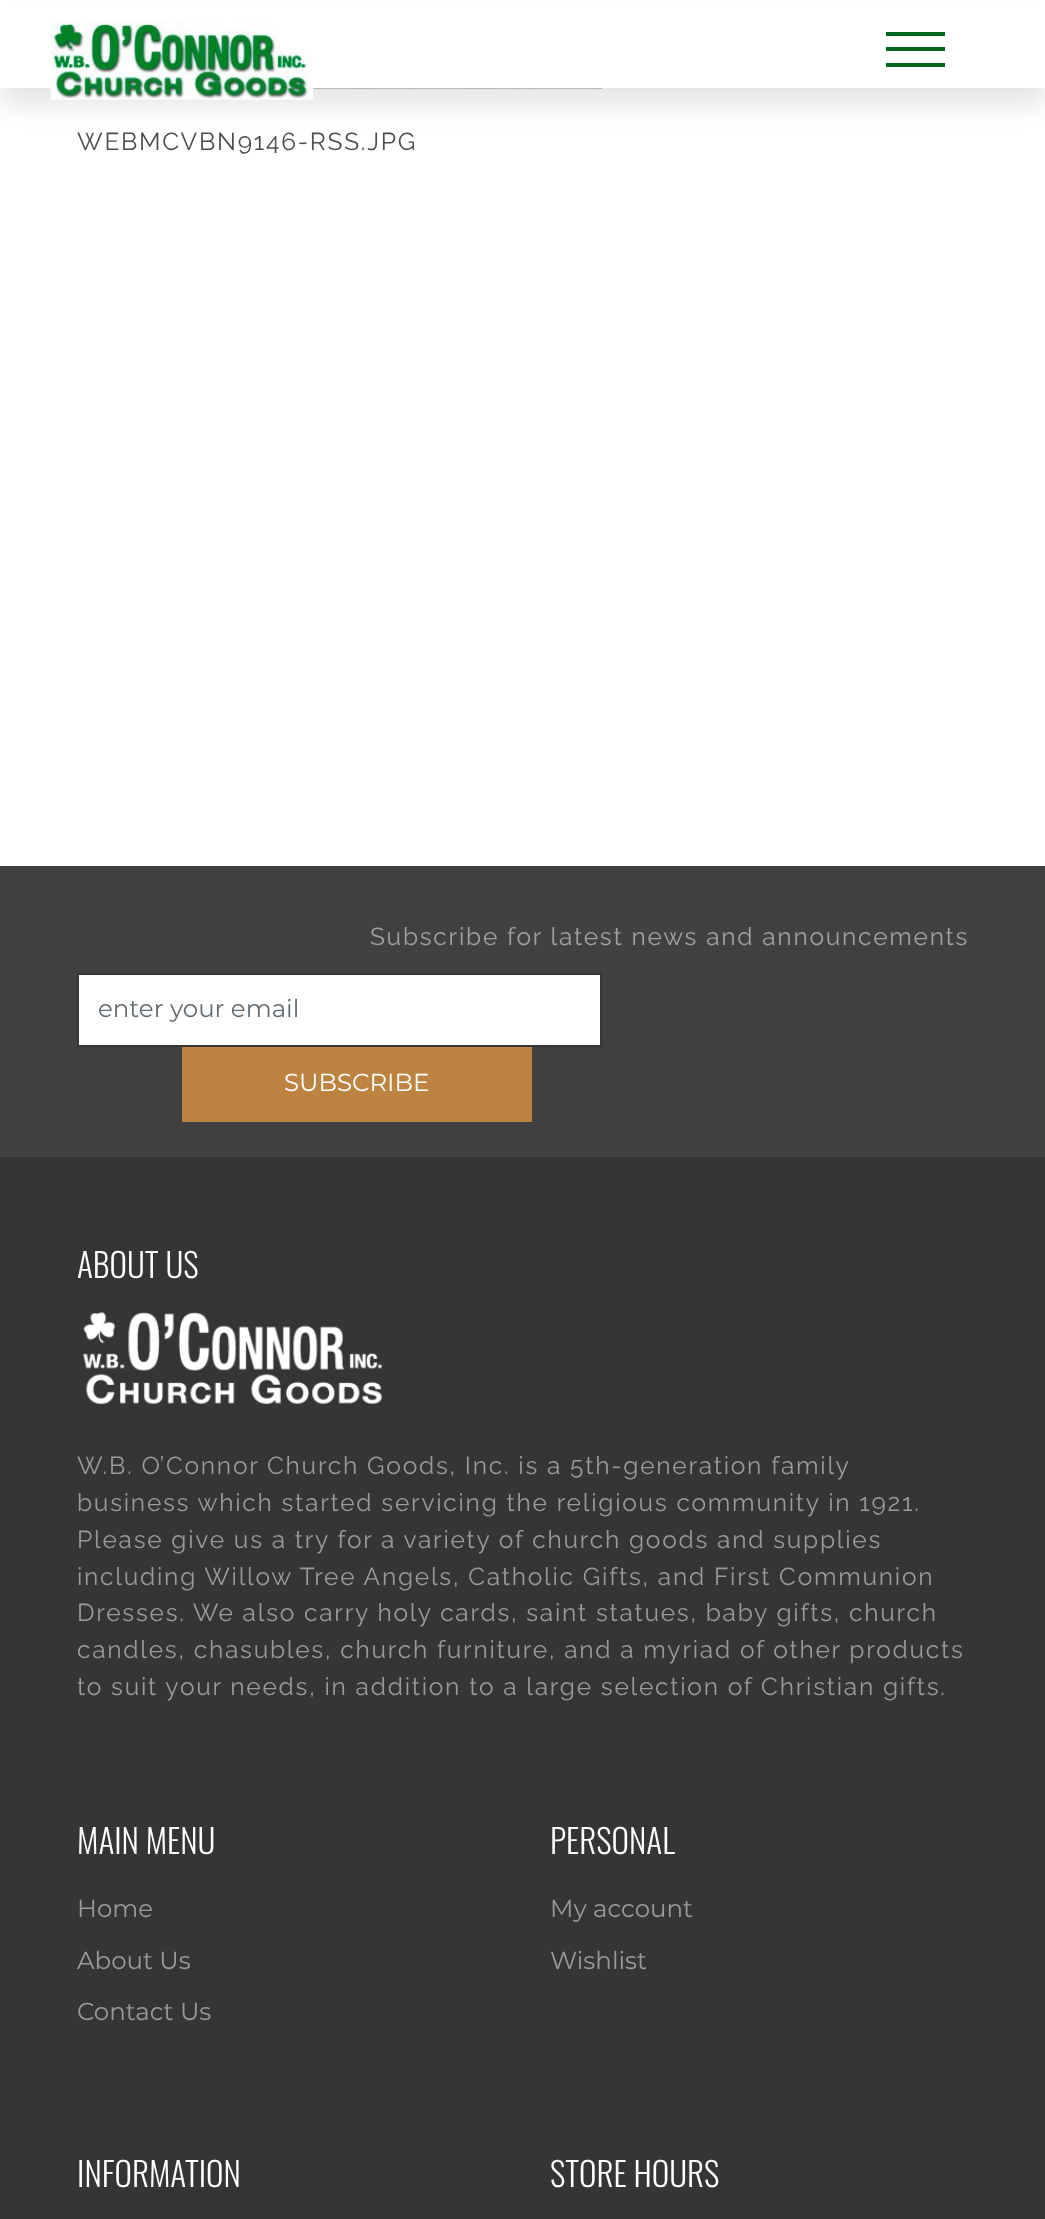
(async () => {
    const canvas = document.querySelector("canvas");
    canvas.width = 1045;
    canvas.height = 2219;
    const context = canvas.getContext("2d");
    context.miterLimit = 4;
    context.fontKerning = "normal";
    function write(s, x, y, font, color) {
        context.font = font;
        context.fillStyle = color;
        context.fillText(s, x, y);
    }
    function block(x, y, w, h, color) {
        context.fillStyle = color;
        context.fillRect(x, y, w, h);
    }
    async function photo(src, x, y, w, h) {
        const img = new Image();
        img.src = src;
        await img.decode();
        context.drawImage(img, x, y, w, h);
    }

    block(0, 0, 1045, 2219, "rgb(255, 255, 255)");
    await photo("media/2.png", 313, 88, 289, 1);
    context.fillStyle = "rgba(0, 0, 0, 0.1)";
    context.filter = "blur(13px)";
    context.beginPath();
    context.rect(0, 18, 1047, 87);
    context.fill();
    context.filter = "none";
    block(0, 1, 1045, 87, "rgb(255, 255, 255)");
    await photo("media/1.png", 50, 21, 264, 79);
    block(886, 32, 59, 4, "rgb(0, 103, 30)");
    block(886, 47, 59, 4, "rgb(0, 103, 30)");
    block(886, 63, 59, 4, "rgb(0, 103, 30)");
    context.letterSpacing = "1.75px";
    write("WEBMCVBN9146-RSS.JPG", 77, 150, "24.5px Raleway", "rgb(77, 77, 77)");
    block(0, 1157, 1045, 1062, "rgb(53, 53, 53)");
    block(0, 866, 1045, 291, "rgb(65, 65, 65)");
    write("Subscribe for latest news and announcements", 370, 945, "24.5px Raleway", "rgb(160, 160, 160)");
    context.fillStyle = "rgb(255, 255, 255)";
    context.beginPath();
    context.rect(78, 974, 523, 72);
    context.fill();
    context.strokeStyle = "rgb(55, 55, 55)";
    context.lineWidth = 2;
    context.stroke();
    context.letterSpacing = "0px";
    write("enter your email", 98, 1017, "100 24.5px Montserrat", "rgb(99, 108, 114)");
    block(182, 1047, 350, 75, "rgb(189, 131, 64)");
    write("SUBSCRIBE", 284, 1091, "100 24.5px Montserrat", "rgb(255, 255, 255)");
    write("ABOUT US", 77, 1278, "300 33.25px Oswald", "rgb(255, 255, 255)");
    await photo("media/3.png", 83, 1312, 300, 93);
    context.letterSpacing = "1.75px";
    write("W.B. O’Connor Church Goods, Inc. is a 5th-generation family", 77, 1474, "24.5px Raleway", "rgb(154, 154, 154)");
    write("business which started servicing the religious community in 1921.", 77, 1511, "24.5px Raleway", "rgb(154, 154, 154)");
    write("Please give us a try for a variety of church goods and supplies", 77, 1548, "24.5px Raleway", "rgb(154, 154, 154)");
    write("including Willow Tree Angels, Catholic Gifts, and First Communion", 77, 1585, "24.5px Raleway", "rgb(154, 154, 154)");
    write("Dresses. We also carry holy cards, saint statues, baby gifts, church", 77, 1621, "24.5px Raleway", "rgb(154, 154, 154)");
    write("candles, chasubles, church furniture, and a myriad of other products", 77, 1658, "24.5px Raleway", "rgb(154, 154, 154)");
    write("to suit your needs, in addition to a large selection of Christian gifts.", 77, 1695, "24.5px Raleway", "rgb(154, 154, 154)");
    context.letterSpacing = "0px";
    write("MAIN MENU", 77, 1854, "300 33.25px Oswald", "rgb(255, 255, 255)");
    write("Home", 77, 1917, "100 24.5px Montserrat", "rgb(154, 154, 154)");
    write("About Us", 77, 1969, "100 24.5px Montserrat", "rgb(154, 154, 154)");
    write("Contact Us", 77, 2020, "100 24.5px Montserrat", "rgb(154, 154, 154)");
    write("PERSONAL", 550, 1854, "300 33.25px Oswald", "rgb(255, 255, 255)");
    write("My account", 550, 1917, "100 24.5px Montserrat", "rgb(154, 154, 154)");
    write("Wishlist", 550, 1969, "100 24.5px Montserrat", "rgb(154, 154, 154)");
    write("INFORMATION", 77, 2187, "300 33.25px Oswald", "rgb(255, 255, 255)");
    write("STORE HOURS", 550, 2187, "300 33.25px Oswald", "rgb(255, 255, 255)");
})();
